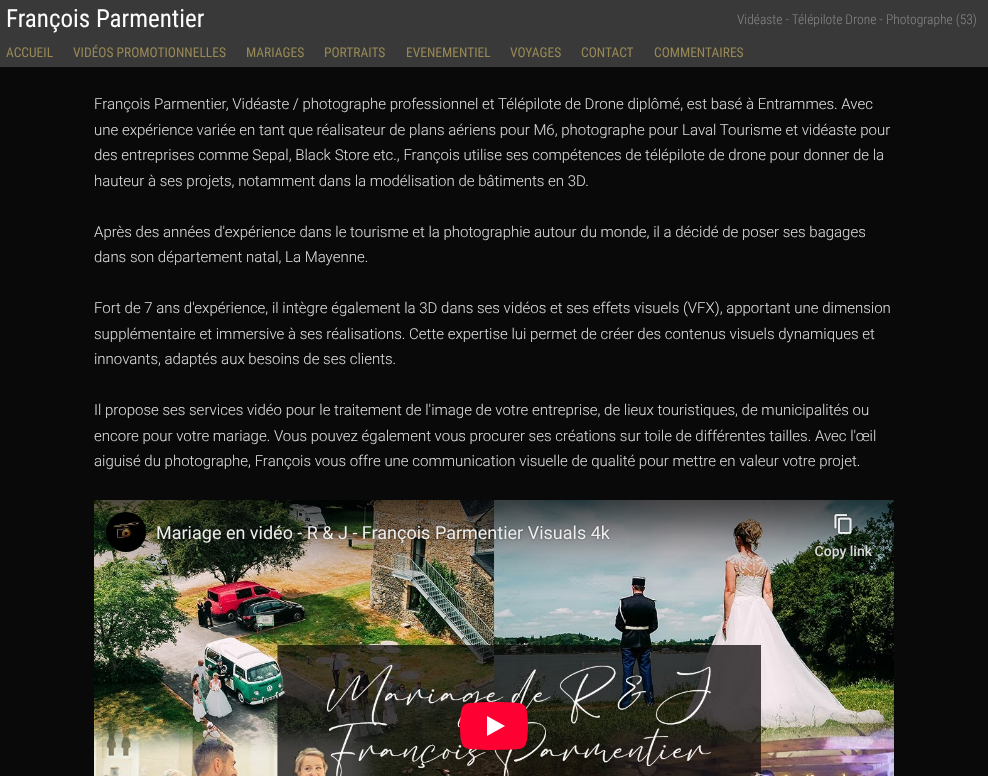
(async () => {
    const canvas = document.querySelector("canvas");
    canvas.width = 988;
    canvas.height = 776;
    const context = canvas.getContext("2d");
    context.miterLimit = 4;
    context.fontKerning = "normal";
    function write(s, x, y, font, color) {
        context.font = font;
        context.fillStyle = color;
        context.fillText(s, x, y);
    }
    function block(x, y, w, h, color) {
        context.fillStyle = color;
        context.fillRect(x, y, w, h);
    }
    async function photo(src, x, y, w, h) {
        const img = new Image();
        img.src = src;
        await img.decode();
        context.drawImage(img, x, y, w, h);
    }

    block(0, 0, 988, 776, "rgb(9, 9, 9)");
    block(0, 0, 988, 67, "rgb(57, 57, 57)");
    write("François Parmentier", 6, 27, "25px Roboto Condensed", "rgb(255, 255, 255)");
    write("Vidéaste - Télépilote Drone - Photographe (53)", 737, 24, "300 13.5px Roboto Condensed", "rgb(136, 136, 136)");
    write("ACCUEIL", 6, 57, "13.5px Roboto Condensed", "rgb(152, 137, 85)");
    write("VIDÉOS PROMOTIONNELLES", 73, 57, "13.5px Roboto Condensed", "rgb(152, 137, 85)");
    write("MARIAGES", 246, 57, "13.5px Roboto Condensed", "rgb(152, 137, 85)");
    write("PORTRAITS", 324, 57, "13.5px Roboto Condensed", "rgb(152, 137, 85)");
    write("EVENEMENTIEL", 406, 57, "13.5px Roboto Condensed", "rgb(152, 137, 85)");
    write("VOYAGES", 510, 57, "13.5px Roboto Condensed", "rgb(152, 137, 85)");
    write("CONTACT", 581, 57, "13.5px Roboto Condensed", "rgb(152, 137, 85)");
    write("COMMENTAIRES", 654, 57, "13.5px Roboto Condensed", "rgb(152, 137, 85)");
    write("François Parmentier, Vidéaste / photographe professionnel et Télépilote de Drone diplômé, est basé à Entrammes. Avec", 94, 109, "300 15px Roboto", "rgb(224, 224, 224)");
    write("une expérience variée en tant que réalisateur de plans aériens pour M6, photographe pour Laval Tourisme et vidéaste pour", 94, 135, "300 15px Roboto", "rgb(224, 224, 224)");
    write("des entreprises comme Sepal, Black Store etc., François utilise ses compétences de télépilote de drone pour donner de la", 94, 160, "300 15px Roboto", "rgb(224, 224, 224)");
    write("hauteur à ses projets, notamment dans la modélisation de bâtiments en 3D.", 94, 186, "300 15px Roboto", "rgb(224, 224, 224)");
    write("Après des années d'expérience dans le tourisme et la photographie autour du monde, il a décidé de poser ses bagages", 94, 237, "300 15px Roboto", "rgb(224, 224, 224)");
    write("dans son département natal, La Mayenne.", 94, 262, "300 15px Roboto", "rgb(224, 224, 224)");
    write("Fort de 7 ans d'expérience, il intègre également la 3D dans ses vidéos et ses effets visuels (VFX), apportant une dimension", 94, 313, "300 15px Roboto", "rgb(224, 224, 224)");
    write("supplémentaire et immersive à ses réalisations. Cette expertise lui permet de créer des contenus visuels dynamiques et", 94, 339, "300 15px Roboto", "rgb(224, 224, 224)");
    write("innovants, adaptés aux besoins de ses clients.", 94, 364, "300 15px Roboto", "rgb(224, 224, 224)");
    write("Il propose ses services vidéo pour le traitement de l'image de votre entreprise, de lieux touristiques, de municipalités ou", 94, 415, "300 15px Roboto", "rgb(224, 224, 224)");
    write("encore pour votre mariage. Vous pouvez également vous procurer ses créations sur toile de différentes tailles. Avec l'œil", 94, 441, "300 15px Roboto", "rgb(224, 224, 224)");
    write("aiguisé du photographe, François vous offre une communication visuelle de qualité pour mettre en valeur votre projet.", 94, 466, "300 15px Roboto", "rgb(224, 224, 224)");
    await photo("media/1.png", 94, 500, 800, 276);
})();
